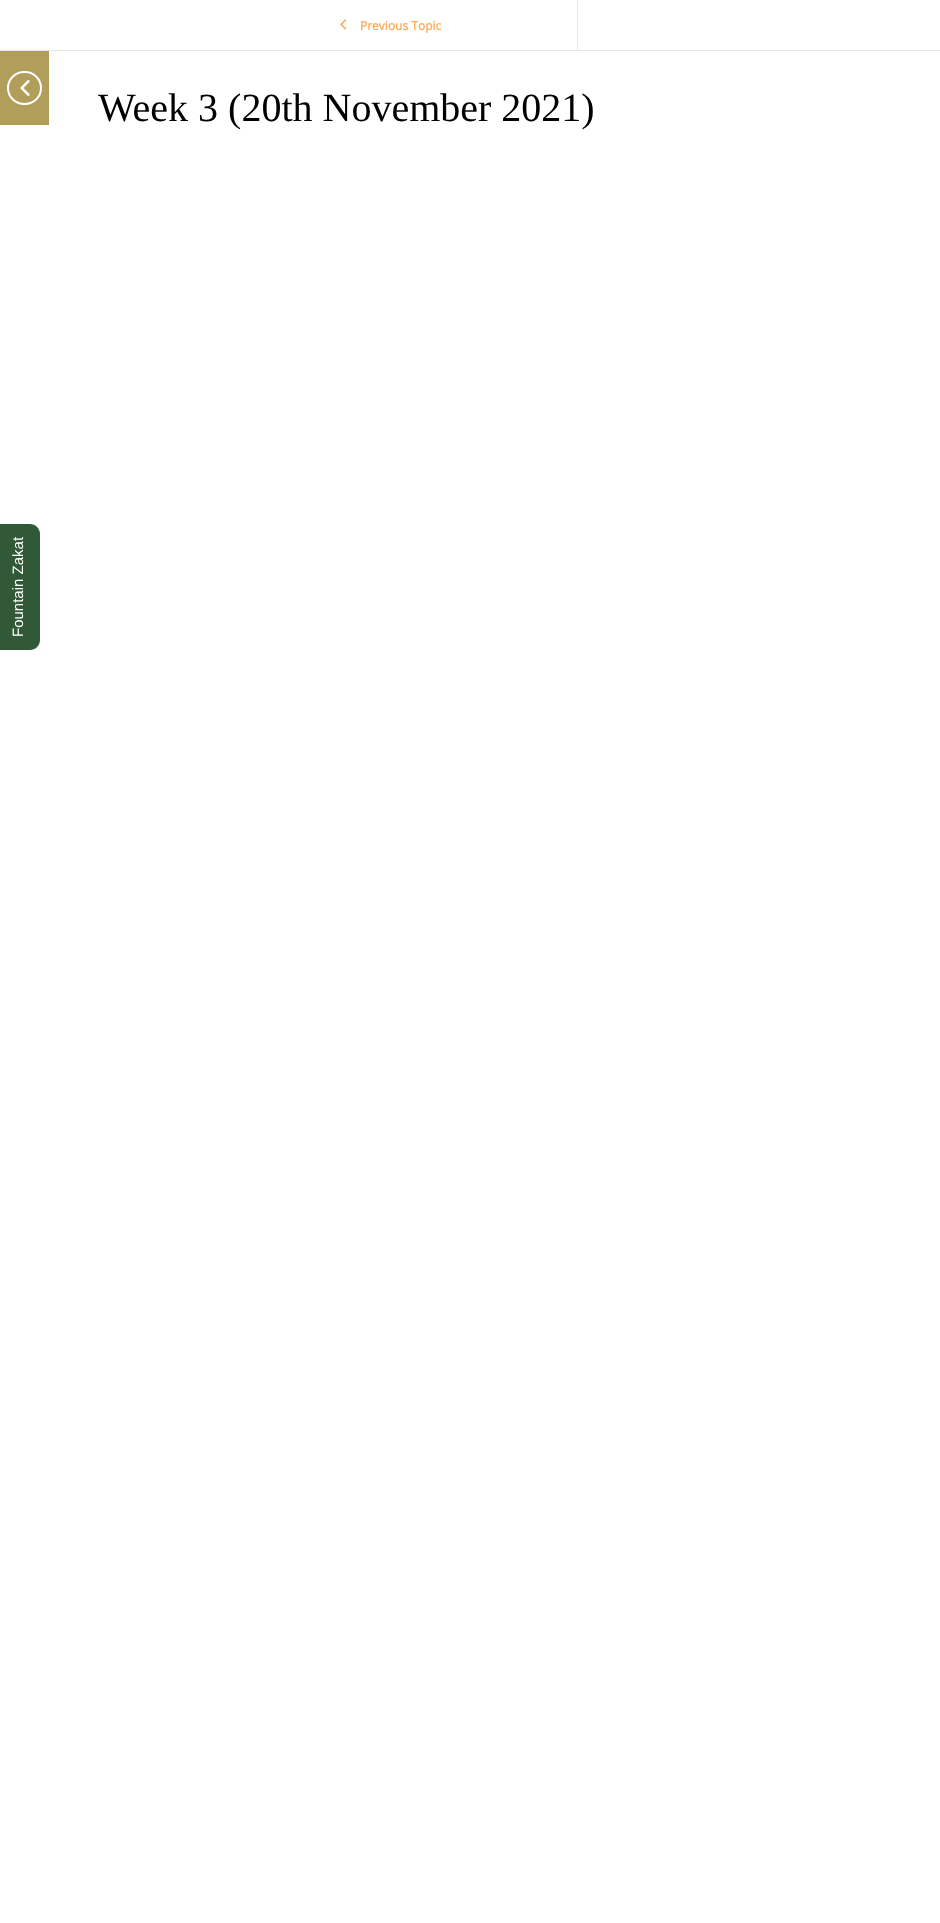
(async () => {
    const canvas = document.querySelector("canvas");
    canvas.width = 940;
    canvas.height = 1923;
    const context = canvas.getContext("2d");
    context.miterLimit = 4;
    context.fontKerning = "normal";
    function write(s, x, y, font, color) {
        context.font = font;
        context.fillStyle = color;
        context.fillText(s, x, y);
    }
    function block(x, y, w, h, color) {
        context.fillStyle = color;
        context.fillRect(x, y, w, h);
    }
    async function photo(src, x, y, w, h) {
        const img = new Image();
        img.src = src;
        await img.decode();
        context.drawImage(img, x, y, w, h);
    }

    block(0, 0, 940, 1923, "rgb(255, 255, 255)");
    block(0, 51, 49, 74, "rgb(176, 158, 90)");
    context.beginPath();
    context.roundRect(8, 72, 33, 32, 16);
    context.strokeStyle = "rgb(255, 255, 255)";
    context.lineWidth = 2;
    context.stroke();
    await photo("media/1.png", 20, 80, 10, 16);
    block(0, 50, 940, 1, "rgb(226, 231, 237)");
    block(577, 0, 1, 51, "rgb(226, 231, 237)");
    await photo("media/2.png", 340, 19, 7, 11);
    write("Previous Topic", 360, 30, "bold 12px Open Sans", "rgb(255, 171, 94)");
    write("Week 3 (20th November 2021)", 98, 121, "40px Liberation Serif", "rgb(0, 0, 0)");
    context.fillStyle = "rgb(49, 89, 55)";
    context.beginPath();
    context.moveTo(-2, 650);
    context.lineTo(-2, 524);
    context.lineTo(30, 524);
    context.bezierCurveTo(35, 524, 40, 528, 40, 534);
    context.lineTo(40, 640);
    context.bezierCurveTo(40, 646, 35, 650, 30, 650);
    context.closePath();
    context.fill();
    context.font = "15px Liberation Sans";
    context.fillStyle = "rgb(255, 255, 255)";
    context.save();
    context.translate(23, 637);
    context.rotate(-90 * Math.PI / 180);
    context.fillText("Fountain Zakat", 0, 0);
    context.restore();
})();
